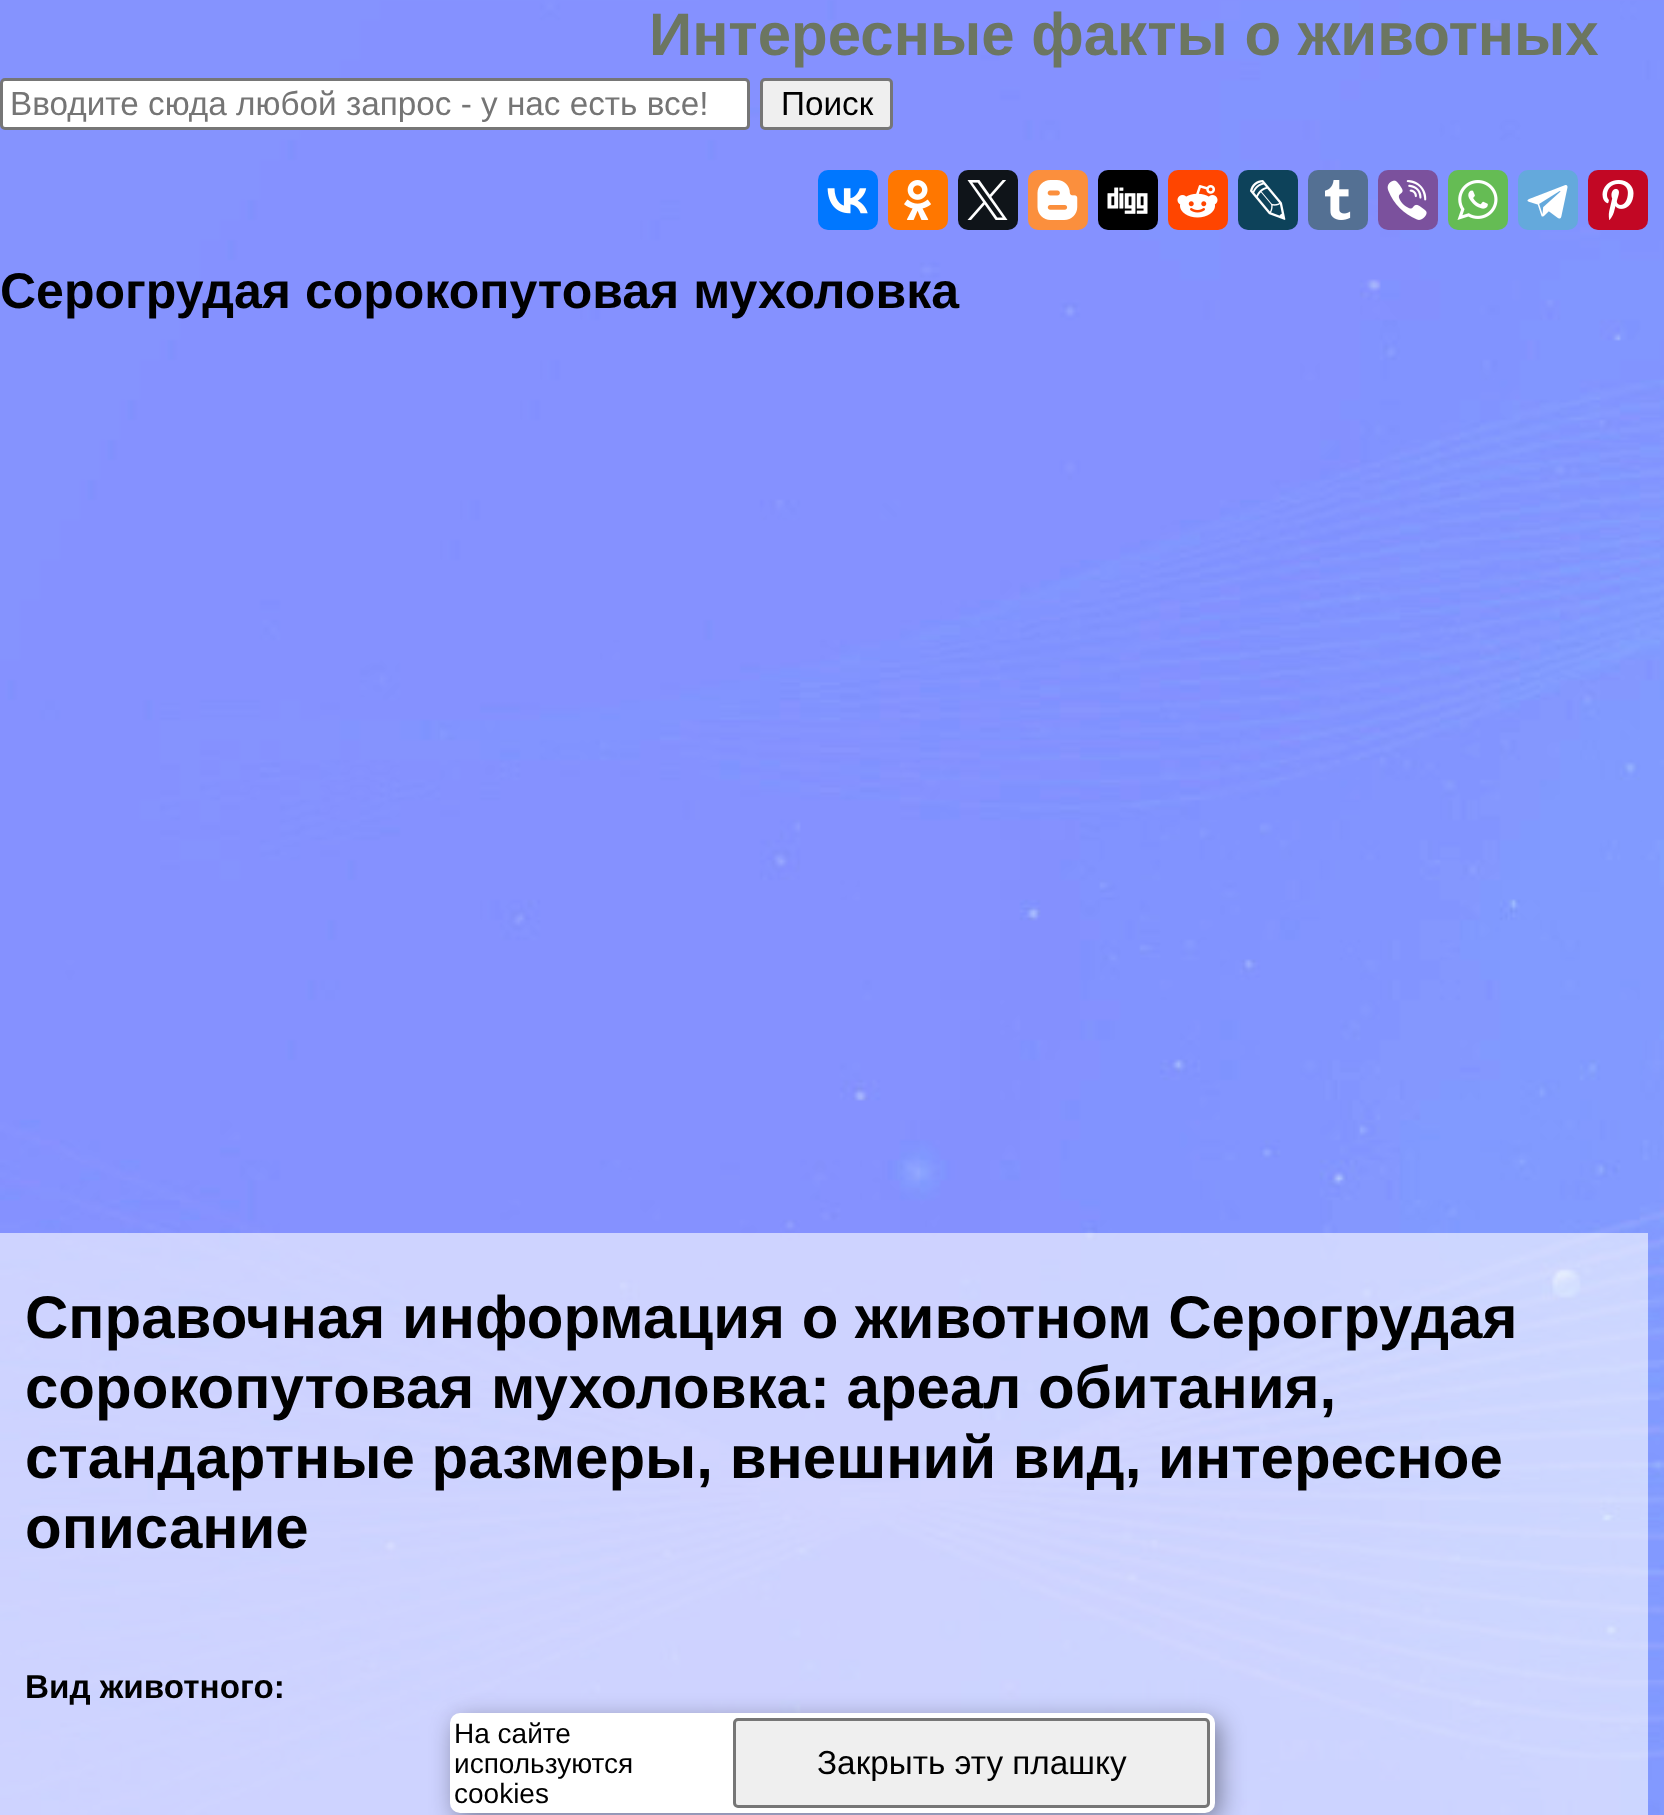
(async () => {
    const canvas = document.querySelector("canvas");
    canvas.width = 1664;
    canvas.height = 1815;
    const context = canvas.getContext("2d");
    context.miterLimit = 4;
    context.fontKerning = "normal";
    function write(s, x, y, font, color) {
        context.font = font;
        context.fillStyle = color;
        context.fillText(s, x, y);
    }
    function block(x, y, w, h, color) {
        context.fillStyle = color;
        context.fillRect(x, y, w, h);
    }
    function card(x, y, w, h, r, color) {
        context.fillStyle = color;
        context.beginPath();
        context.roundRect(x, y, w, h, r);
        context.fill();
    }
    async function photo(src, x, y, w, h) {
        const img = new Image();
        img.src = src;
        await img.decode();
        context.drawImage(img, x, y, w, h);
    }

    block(0, 0, 1664, 1815, "rgb(255, 255, 255)");
    await photo("media/1.png", 0, 0, 1664, 1815);
    write("Интересные факты о животных", 649, 55, "bold 60px Liberation Sans", "rgb(108, 118, 97)");
    context.fillStyle = "rgb(255, 255, 255)";
    context.beginPath();
    context.roundRect(1.5, 79.5, 747, 49, 3.5);
    context.fill();
    context.strokeStyle = "rgb(118, 118, 118)";
    context.lineWidth = 3;
    context.stroke();
    write("Вводите сюда любой запрос - у нас есть все!", 10, 115, "33.3px Liberation Sans", "rgb(117, 117, 117)");
    context.fillStyle = "rgb(239, 239, 239)";
    context.beginPath();
    context.roundRect(761.5, 79.5, 130, 49, 3.5);
    context.fill();
    context.stroke();
    write("Поиск", 781, 115, "33.3px Liberation Sans", "rgb(0, 0, 0)");
    card(818, 170, 60, 60, 10, "rgb(0, 119, 255)");
    await photo("media/2.png", 827, 188, 41, 26);
    card(888, 170, 60, 60, 10, "rgb(255, 119, 0)");
    await photo("media/3.png", 904, 180, 27, 40);
    card(958, 170, 60, 60, 10, "rgb(15, 20, 25)");
    await photo("media/4.png", 967, 180, 41, 40);
    card(1028, 170, 60, 60, 10, "rgb(251, 143, 61)");
    await photo("media/5.png", 1037, 180, 41, 40);
    card(1098, 170, 60, 60, 10, "rgb(0, 0, 0)");
    await photo("media/6.png", 1107, 187, 41, 27);
    card(1168, 170, 60, 60, 10, "rgb(255, 69, 0)");
    await photo("media/7.png", 1177, 185, 41, 33);
    card(1238, 170, 60, 60, 10, "rgb(13, 66, 90)");
    await photo("media/8.png", 1250, 180, 36, 40);
    card(1308, 170, 60, 60, 10, "rgb(84, 112, 147)");
    await photo("media/9.png", 1325, 180, 26, 40);
    card(1378, 170, 60, 60, 10, "rgb(123, 81, 157)");
    await photo("media/10.png", 1387, 180, 40, 40);
    card(1448, 170, 60, 60, 10, "rgb(101, 188, 84)");
    await photo("media/11.png", 1457, 180, 41, 40);
    card(1518, 170, 60, 60, 10, "rgb(100, 169, 220)");
    await photo("media/12.png", 1527, 185, 41, 34);
    card(1588, 170, 60, 60, 10, "rgb(194, 7, 36)");
    await photo("media/13.png", 1602, 180, 32, 40);
    write("Серогрудая сорокопутовая мухоловка", 0, 308, "bold 50px Liberation Sans", "rgb(0, 0, 0)");
    block(0, 1233, 1648, 582, "rgba(255, 255, 255, 0.6)");
    write("Справочная информация о животном Серогрудая", 25, 1338, "bold 60px Liberation Sans", "rgb(0, 0, 0)");
    write("сорокопутовая мухоловка: ареал обитания,", 25, 1408, "bold 60px Liberation Sans", "rgb(0, 0, 0)");
    write("стандартные размеры, внешний вид, интересное", 25, 1478, "bold 60px Liberation Sans", "rgb(0, 0, 0)");
    write("описание", 25, 1548, "bold 60px Liberation Sans", "rgb(0, 0, 0)");
    write("Вид животного:", 25, 1698, "bold 33.25px Liberation Sans", "rgb(0, 0, 0)");
    context.fillStyle = "rgba(0, 0, 0, 0.4)";
    context.filter = "blur(12.5px)";
    context.beginPath();
    context.roundRect(455, 1720, 765, 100, 10);
    context.fill();
    context.filter = "none";
    card(450, 1713, 765, 100, 10, "rgb(255, 255, 255)");
    write("На сайте", 454, 1743, "28px Liberation Sans", "rgb(0, 0, 0)");
    write("используются", 454, 1773, "28px Liberation Sans", "rgb(0, 0, 0)");
    write("cookies", 454, 1803, "28px Liberation Sans", "rgb(0, 0, 0)");
    context.fillStyle = "rgb(239, 239, 239)";
    context.beginPath();
    context.roundRect(734.5, 1719.5, 474, 87, 3.5);
    context.fill();
    context.stroke();
    write("Закрыть эту плашку", 817, 1774, "33.3px Liberation Sans", "rgb(0, 0, 0)");
})();
